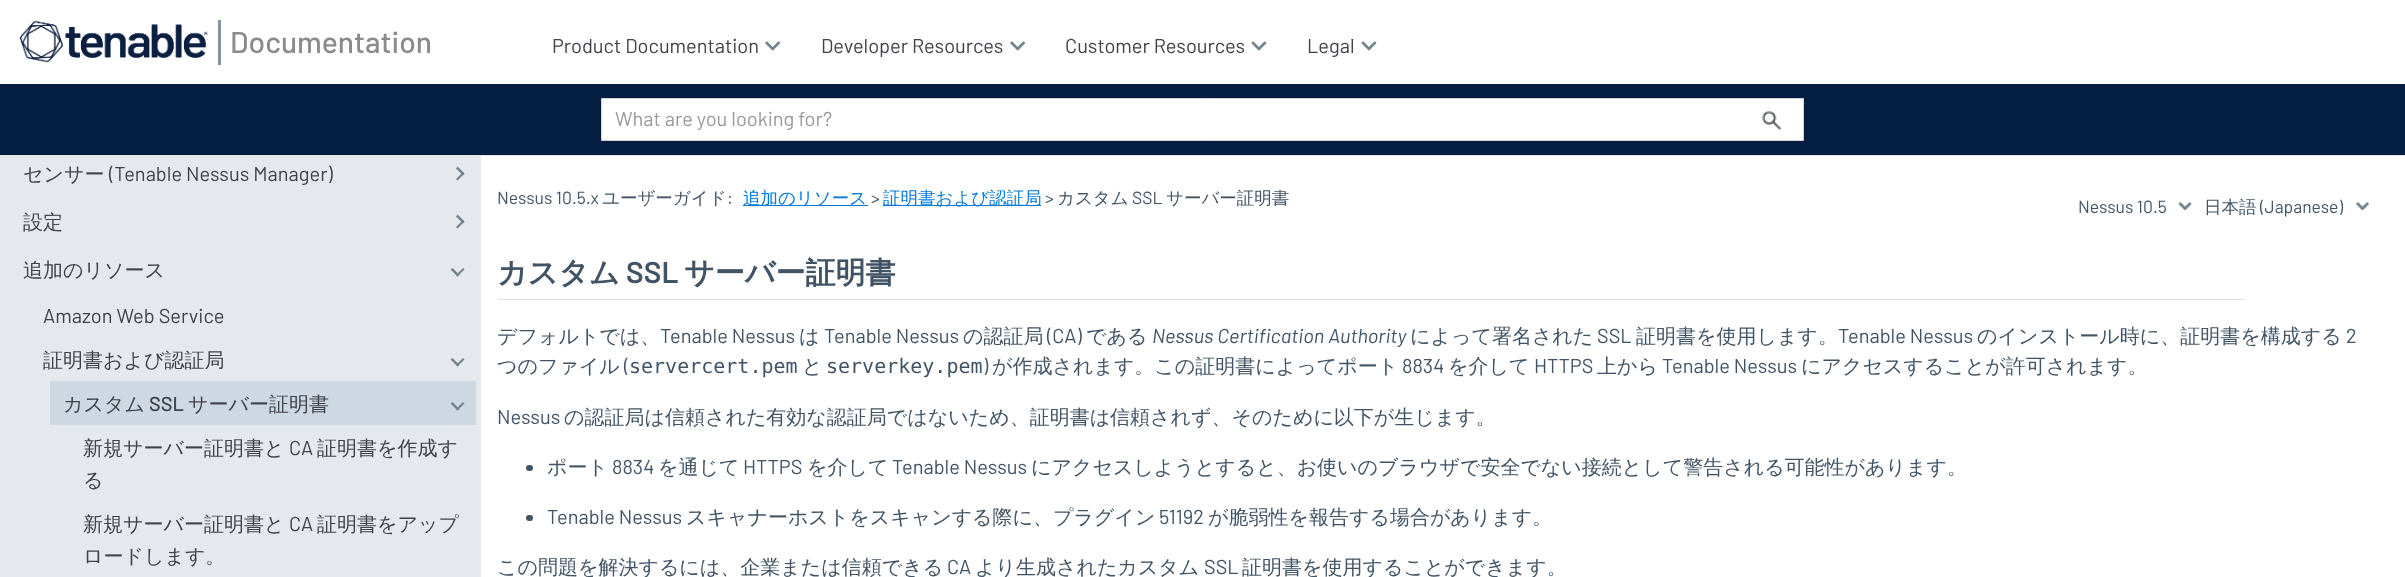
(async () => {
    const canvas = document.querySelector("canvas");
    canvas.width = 2405;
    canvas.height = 577;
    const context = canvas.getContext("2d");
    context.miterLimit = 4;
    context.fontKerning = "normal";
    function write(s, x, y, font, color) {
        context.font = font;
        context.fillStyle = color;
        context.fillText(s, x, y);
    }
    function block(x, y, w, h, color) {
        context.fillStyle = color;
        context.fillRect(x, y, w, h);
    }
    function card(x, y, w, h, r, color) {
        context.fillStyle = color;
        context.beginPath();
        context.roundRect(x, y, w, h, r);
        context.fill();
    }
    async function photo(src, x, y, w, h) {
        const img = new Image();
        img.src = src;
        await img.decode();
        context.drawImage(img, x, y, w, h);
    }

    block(0, 0, 2405, 577, "rgb(255, 255, 255)");
    block(0, 155, 2405, 1, "rgb(230, 230, 230)");
    await photo("media/1.png", 20, 20, 188, 43);
    block(218, 20, 3, 45, "rgb(130, 148, 168)");
    write("Documentation", 230, 53, "500 30px Barlow", "rgb(138, 138, 138)");
    write("Product Documentation", 552, 53, "20px Barlow", "rgb(65, 65, 75)");
    await photo("media/2.png", 765, 41, 15, 10);
    write("Developer Resources", 821, 53, "20px Barlow", "rgb(65, 65, 75)");
    await photo("media/2.png", 1010, 41, 15, 10);
    write("Customer Resources", 1065, 53, "20px Barlow", "rgb(65, 65, 75)");
    await photo("media/3.png", 1251, 41, 16, 10);
    write("Legal", 1307, 53, "20px Barlow", "rgb(65, 65, 75)");
    await photo("media/3.png", 1361, 41, 16, 10);
    block(0, 84, 2405, 71, "rgb(4, 30, 66)");
    context.fillStyle = "rgb(255, 255, 255)";
    context.beginPath();
    context.rect(601.5, 98.5, 1202, 42);
    context.fill();
    context.strokeStyle = "rgb(211, 211, 211)";
    context.stroke();
    write("What are you looking for?", 615, 126, "20px Barlow", "rgb(153, 153, 153)");
    await photo("media/4.png", 1762, 111, 20, 20);
    block(0, 156, 481, 421, "rgb(229, 233, 237)");
    write("センサー", 23, 181, "500 20px WenQuanYi Zen Hei", "rgb(65, 65, 75)");
    write("(Tenable Nessus Manager)", 109, 181, "20px Barlow", "rgb(65, 65, 75)");
    context.fillStyle = "rgb(114, 132, 142)";
    context.beginPath();
    context.moveTo(456, 168.5);
    context.lineTo(457.5, 166.5);
    context.lineTo(464.5, 173.5);
    context.lineTo(463, 175.5);
    context.closePath();
    context.fill();
    context.beginPath();
    context.moveTo(456, 179);
    context.lineTo(463, 172);
    context.lineTo(464.5, 173.5);
    context.lineTo(457.5, 180.5);
    context.closePath();
    context.fill();
    write("設定", 23, 229, "500 20px WenQuanYi Zen Hei", "rgb(65, 65, 75)");
    context.fillStyle = "rgb(114, 132, 142)";
    context.beginPath();
    context.moveTo(456, 216.5);
    context.lineTo(457.5, 214.5);
    context.lineTo(464.5, 221.5);
    context.lineTo(463, 223.5);
    context.closePath();
    context.fill();
    context.beginPath();
    context.moveTo(456, 227);
    context.lineTo(463, 220);
    context.lineTo(464.5, 221.5);
    context.lineTo(457.5, 228.5);
    context.closePath();
    context.fill();
    write("追加のリソース", 23, 277, "500 20px WenQuanYi Zen Hei", "rgb(65, 65, 75)");
    context.fillStyle = "rgb(114, 132, 142)";
    context.beginPath();
    context.moveTo(463, 268);
    context.lineTo(464.5, 269.5);
    context.lineTo(457.5, 276.5);
    context.lineTo(456, 275);
    context.closePath();
    context.fill();
    context.beginPath();
    context.moveTo(452.5, 268);
    context.lineTo(459.5, 275);
    context.lineTo(457.5, 276.5);
    context.lineTo(450.5, 269.5);
    context.closePath();
    context.fill();
    write("Amazon Web Service", 43, 323, "20px Barlow", "rgb(65, 65, 75)");
    write("証明書および認証局", 43, 367, "500 20px WenQuanYi Zen Hei", "rgb(65, 65, 75)");
    context.fillStyle = "rgb(114, 132, 142)";
    context.beginPath();
    context.moveTo(463, 358);
    context.lineTo(464.5, 359.5);
    context.lineTo(457.5, 366.5);
    context.lineTo(456, 365);
    context.closePath();
    context.fill();
    context.beginPath();
    context.moveTo(452.5, 358);
    context.lineTo(459.5, 365);
    context.lineTo(457.5, 366.5);
    context.lineTo(450.5, 359.5);
    context.closePath();
    context.fill();
    block(50, 381, 426, 44, "rgb(205, 216, 226)");
    write("カスタム", 63, 411, "500 20px WenQuanYi Zen Hei", "rgb(65, 65, 75)");
    write("SSL", 149, 411, "500 20px Barlow", "rgb(65, 65, 75)");
    write("サーバー証明書", 188, 411, "500 20px WenQuanYi Zen Hei", "rgb(65, 65, 75)");
    context.fillStyle = "rgb(114, 132, 142)";
    context.beginPath();
    context.moveTo(463, 402);
    context.lineTo(464.5, 403.5);
    context.lineTo(457.5, 410.5);
    context.lineTo(456, 409);
    context.closePath();
    context.fill();
    context.beginPath();
    context.moveTo(452.5, 402);
    context.lineTo(459.5, 409);
    context.lineTo(457.5, 410.5);
    context.lineTo(450.5, 403.5);
    context.closePath();
    context.fill();
    write("新規サーバー証明書と", 83, 455, "500 20px WenQuanYi Zen Hei", "rgb(65, 65, 75)");
    write("CA", 289, 455, "20px Barlow", "rgb(65, 65, 75)");
    write("証明書を作成す", 317, 455, "500 20px WenQuanYi Zen Hei", "rgb(65, 65, 75)");
    write("る", 83, 487, "500 20px WenQuanYi Zen Hei", "rgb(65, 65, 75)");
    write("新規サーバー証明書と", 83, 531, "500 20px WenQuanYi Zen Hei", "rgb(65, 65, 75)");
    write("CA", 289, 531, "20px Barlow", "rgb(65, 65, 75)");
    write("証明書をアップ", 317, 531, "500 20px WenQuanYi Zen Hei", "rgb(65, 65, 75)");
    write("ロードします。", 83, 563, "500 20px WenQuanYi Zen Hei", "rgb(65, 65, 75)");
    write("Nessus 10.5.x", 497, 204, "17.5px Barlow", "rgb(65, 84, 101)");
    write("ユーザーガイド", 602, 204, "500 17.5px WenQuanYi Zen Hei", "rgb(65, 84, 101)");
    write(":", 727, 204, "17.5px Barlow", "rgb(65, 84, 101)");
    block(743, 205, 125, 1, "rgb(0, 121, 221)");
    write("追加のリソース", 743, 204, "500 17.5px WenQuanYi Zen Hei", "rgb(0, 121, 221)");
    write(">", 871, 204, "17.5px Barlow", "rgb(65, 84, 101)");
    block(883, 205, 158, 1, "rgb(0, 121, 221)");
    write("証明書および認証局", 883, 204, "500 17.5px WenQuanYi Zen Hei", "rgb(0, 121, 221)");
    write(">", 1045, 204, "17.5px Barlow", "rgb(65, 84, 101)");
    write("カスタム", 1057, 204, "500 17.5px WenQuanYi Zen Hei", "rgb(65, 84, 101)");
    write("SSL", 1132, 204, "17.5px Barlow", "rgb(65, 84, 101)");
    write("サーバー証明書", 1166, 204, "500 17.5px WenQuanYi Zen Hei", "rgb(65, 84, 101)");
    await photo("media/5.png", 2178, 202, 14, 9);
    write("Nessus 10.5", 2078, 213, "17.5px Barlow", "rgb(65, 84, 101)");
    await photo("media/6.png", 2356, 202, 13, 9);
    write("日本語", 2204, 213, "500 17.5px WenQuanYi Zen Hei", "rgb(65, 84, 101)");
    write("(Japanese)", 2260, 213, "17.5px Barlow", "rgb(65, 84, 101)");
    block(498, 299, 1746, 1, "rgb(218, 223, 225)");
    write("カスタム", 497, 283, "bold 30px WenQuanYi Zen Hei", "rgb(65, 84, 101)");
    write("SSL", 626, 283, "600 30px Barlow", "rgb(65, 84, 101)");
    write("サーバー証明書", 684, 283, "bold 30px WenQuanYi Zen Hei", "rgb(65, 84, 101)");
    write("デフォルトでは、", 497, 343, "500 20px WenQuanYi Zen Hei", "rgb(65, 84, 101)");
    write("Tenable Nessus", 660, 343, "20px Barlow", "rgb(65, 84, 101)");
    write("は", 799, 343, "500 20px WenQuanYi Zen Hei", "rgb(65, 84, 101)");
    write("Tenable Nessus", 824, 343, "20px Barlow", "rgb(65, 84, 101)");
    write("の認証局", 963, 343, "500 20px WenQuanYi Zen Hei", "rgb(65, 84, 101)");
    write("(CA)", 1047, 343, "20px Barlow", "rgb(65, 84, 101)");
    write("である", 1086, 343, "500 20px WenQuanYi Zen Hei", "rgb(65, 84, 101)");
    write("Nessus Certification Authority", 1152, 343, "italic 20px Barlow", "rgb(65, 84, 101)");
    write("によって署名された", 1410, 343, "500 20px WenQuanYi Zen Hei", "rgb(65, 84, 101)");
    write("SSL", 1597, 343, "20px Barlow", "rgb(65, 84, 101)");
    write("証明書を使用します。", 1636, 343, "500 20px WenQuanYi Zen Hei", "rgb(65, 84, 101)");
    write("Tenable Nessus", 1838, 343, "20px Barlow", "rgb(65, 84, 101)");
    write("のインストール時に、証明書を構成する", 1977, 343, "500 20px WenQuanYi Zen Hei", "rgb(65, 84, 101)");
    write("2", 2346, 343, "20px Barlow", "rgb(65, 84, 101)");
    write("つのファイル", 497, 373, "500 20px WenQuanYi Zen Hei", "rgb(65, 84, 101)");
    write("(", 624, 373, "20px Barlow", "rgb(65, 84, 101)");
    write("servercert.pem", 629, 373, "20px DejaVu Sans Mono", "rgb(65, 84, 101)");
    write("と", 802, 373, "500 20px WenQuanYi Zen Hei", "rgb(65, 84, 101)");
    write("serverkey.pem", 826, 373, "20px DejaVu Sans Mono", "rgb(65, 84, 101)");
    write(")", 983, 373, "20px Barlow", "rgb(65, 84, 101)");
    write("が作成されます。この証明書によってポート", 992, 373, "500 20px WenQuanYi Zen Hei", "rgb(65, 84, 101)");
    write("8834", 1402, 373, "20px Barlow", "rgb(65, 84, 101)");
    write("を介して", 1448, 373, "500 20px WenQuanYi Zen Hei", "rgb(65, 84, 101)");
    write("HTTPS", 1534, 373, "20px Barlow", "rgb(65, 84, 101)");
    write("上から", 1597, 373, "500 20px WenQuanYi Zen Hei", "rgb(65, 84, 101)");
    write("Tenable Nessus", 1662, 373, "20px Barlow", "rgb(65, 84, 101)");
    write("にアクセスすることが許可されます。", 1801, 373, "500 20px WenQuanYi Zen Hei", "rgb(65, 84, 101)");
    write("Nessus", 497, 424, "20px Barlow", "rgb(65, 84, 101)");
    write("の認証局は信頼された有効な認証局ではないため、証明書は信頼されず、そのために以下が生じます。", 564, 424, "500 20px WenQuanYi Zen Hei", "rgb(65, 84, 101)");
    card(526, 465, 7, 6, 3, "rgb(65, 84, 101)");
    write("ポート", 547, 474, "500 20px WenQuanYi Zen Hei", "rgb(65, 84, 101)");
    write("8834", 612, 474, "20px Barlow", "rgb(65, 84, 101)");
    write("を通じて", 658, 474, "500 20px WenQuanYi Zen Hei", "rgb(65, 84, 101)");
    write("HTTPS", 743, 474, "20px Barlow", "rgb(65, 84, 101)");
    write("を介して", 807, 474, "500 20px WenQuanYi Zen Hei", "rgb(65, 84, 101)");
    write("Tenable Nessus", 892, 474, "20px Barlow", "rgb(65, 84, 101)");
    write("にアクセスしようとすると、お使いのブラウザで安全でない接続として警告される可能性があります。", 1031, 474, "500 20px WenQuanYi Zen Hei", "rgb(65, 84, 101)");
    card(526, 515, 7, 6, 3, "rgb(65, 84, 101)");
    write("Tenable Nessus", 547, 524, "20px Barlow", "rgb(65, 84, 101)");
    write("スキャナーホストをスキャンする際に、プラグイン", 686, 524, "500 20px WenQuanYi Zen Hei", "rgb(65, 84, 101)");
    write("51192", 1159, 524, "20px Barlow", "rgb(65, 84, 101)");
    write("が脆弱性を報告する場合があります。", 1208, 524, "500 20px WenQuanYi Zen Hei", "rgb(65, 84, 101)");
    write("この問題を解決するには、企業または信頼できる", 497, 574, "500 20px WenQuanYi Zen Hei", "rgb(65, 84, 101)");
    write("CA", 947, 574, "20px Barlow", "rgb(65, 84, 101)");
    write("より生成されたカスタム", 975, 574, "500 20px WenQuanYi Zen Hei", "rgb(65, 84, 101)");
    write("SSL", 1204, 574, "20px Barlow", "rgb(65, 84, 101)");
    write("証明書を使用することができます。", 1242, 574, "500 20px WenQuanYi Zen Hei", "rgb(65, 84, 101)");
})();
